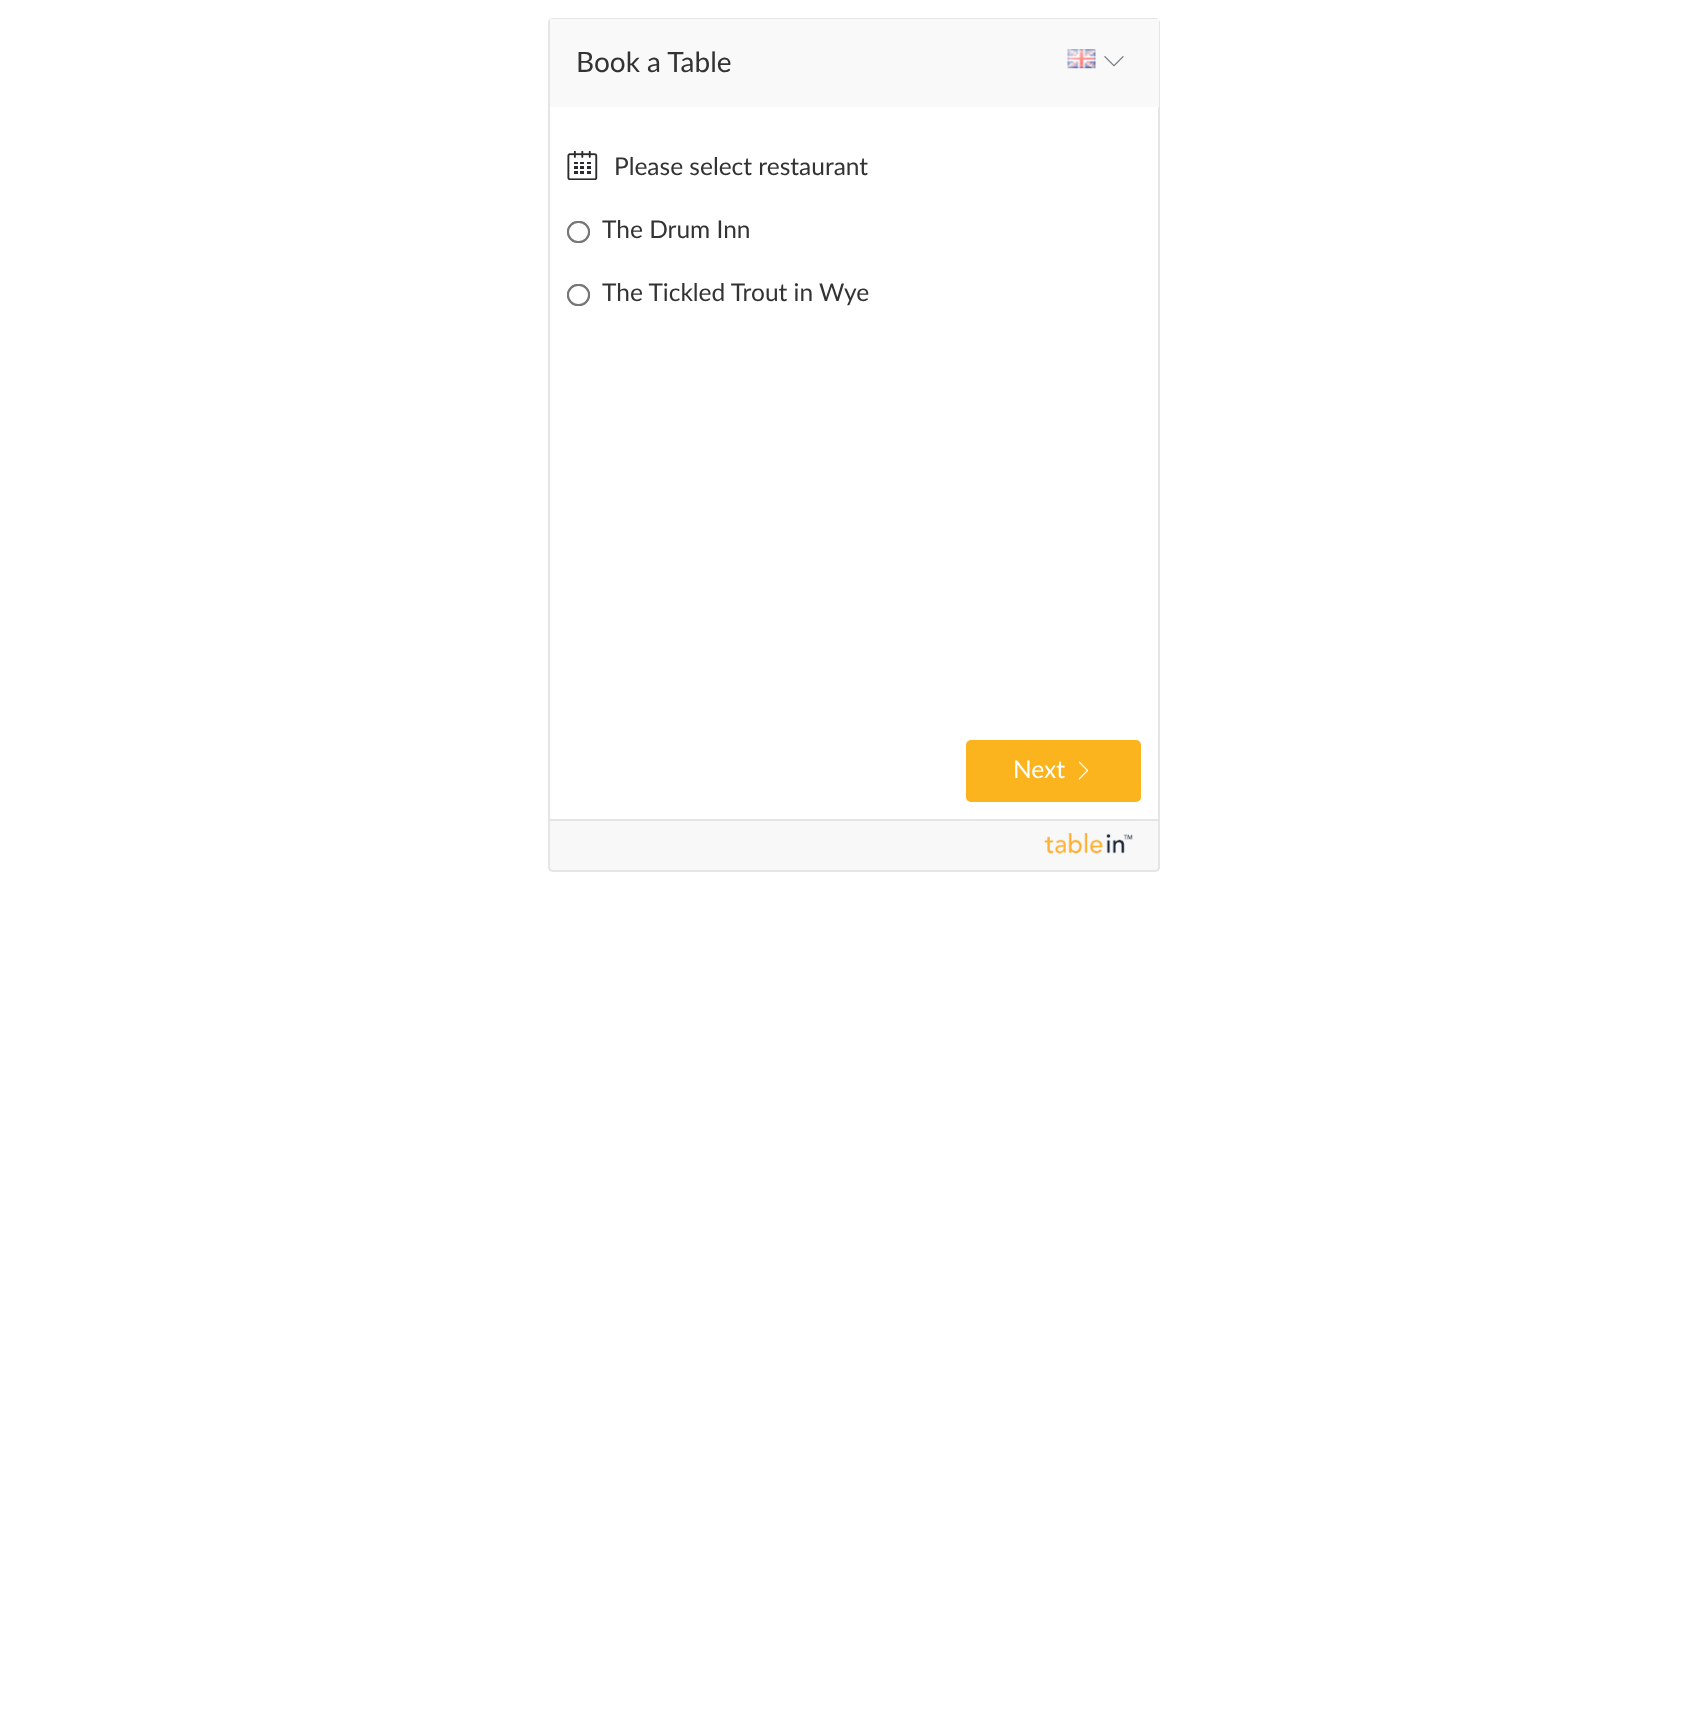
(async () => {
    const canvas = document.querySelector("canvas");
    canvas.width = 1708;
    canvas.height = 1719;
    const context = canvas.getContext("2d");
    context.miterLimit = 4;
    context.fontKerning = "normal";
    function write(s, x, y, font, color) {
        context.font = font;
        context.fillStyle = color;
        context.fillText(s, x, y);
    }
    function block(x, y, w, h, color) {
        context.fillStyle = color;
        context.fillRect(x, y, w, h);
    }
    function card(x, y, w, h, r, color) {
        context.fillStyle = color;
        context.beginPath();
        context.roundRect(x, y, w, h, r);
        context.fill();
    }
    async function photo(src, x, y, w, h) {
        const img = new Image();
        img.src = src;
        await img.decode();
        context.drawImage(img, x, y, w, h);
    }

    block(0, 0, 1708, 1719, "rgb(255, 255, 255)");
    context.fillStyle = "rgb(229, 229, 229)";
    context.beginPath();
    context.moveTo(553, 18);
    context.lineTo(1155, 18);
    context.bezierCurveTo(1158, 18, 1160, 20, 1160, 23);
    context.lineTo(1160, 866);
    context.bezierCurveTo(1160, 869, 1158, 872, 1155, 872);
    context.lineTo(553, 872);
    context.bezierCurveTo(550, 872, 548, 869, 548, 866);
    context.lineTo(548, 23);
    context.bezierCurveTo(548, 20, 550, 18, 553, 18);
    context.closePath();
    context.moveTo(553, 19);
    context.lineTo(1155, 19);
    context.bezierCurveTo(1157, 19, 1158, 21, 1158, 23);
    context.lineTo(1158, 866);
    context.bezierCurveTo(1158, 869, 1157, 872, 1155, 872);
    context.lineTo(553, 872);
    context.bezierCurveTo(551, 872, 550, 869, 550, 866);
    context.lineTo(550, 23);
    context.bezierCurveTo(550, 21, 551, 19, 553, 19);
    context.closePath();
    context.fill("evenodd");
    block(550, 19, 609, 88, "rgb(249, 249, 249)");
    write("Book a Table", 576, 72, "28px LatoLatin", "rgb(51, 51, 51)");
    await photo("media/1.png", 1067, 49, 29, 20);
    await photo("media/2.png", 1104, 56, 20, 11);
    await photo("media/3.png", 567, 151, 31, 29);
    write("Please select restaurant", 614, 175, "24.5px LatoLatin", "rgb(51, 51, 51)");
    context.beginPath();
    context.roundRect(568, 222, 21, 20, 10);
    context.strokeStyle = "rgb(118, 118, 118)";
    context.lineWidth = 2;
    context.stroke();
    context.fillStyle = "rgb(255, 255, 255)";
    context.beginPath();
    context.roundRect(568, 222, 21, 20, 10);
    context.fill();
    context.stroke();
    write("The Drum Inn", 602, 238, "24.5px LatoLatin", "rgb(51, 51, 51)");
    context.beginPath();
    context.roundRect(568, 285, 21, 20, 10);
    context.stroke();
    context.fillStyle = "rgb(255, 255, 255)";
    context.beginPath();
    context.roundRect(568, 285, 21, 20, 10);
    context.fill();
    context.stroke();
    write("The Tickled Trout in Wye", 602, 301, "24.5px LatoLatin", "rgb(51, 51, 51)");
    card(966, 740, 175, 62, 5, "rgb(251, 180, 29)");
    write("Next", 1013, 778, "24.5px LatoLatin", "rgb(255, 255, 255)");
    await photo("media/4.png", 1078, 761, 11, 19);
    context.fillStyle = "rgb(248, 248, 248)";
    context.beginPath();
    context.roundRect(549, 820, 610, 51, [0, 0, 4, 4]);
    context.fill();
    context.strokeStyle = "rgb(229, 229, 229)";
    context.stroke();
    await photo("media/5.png", 1044, 833, 89, 21);
})();
